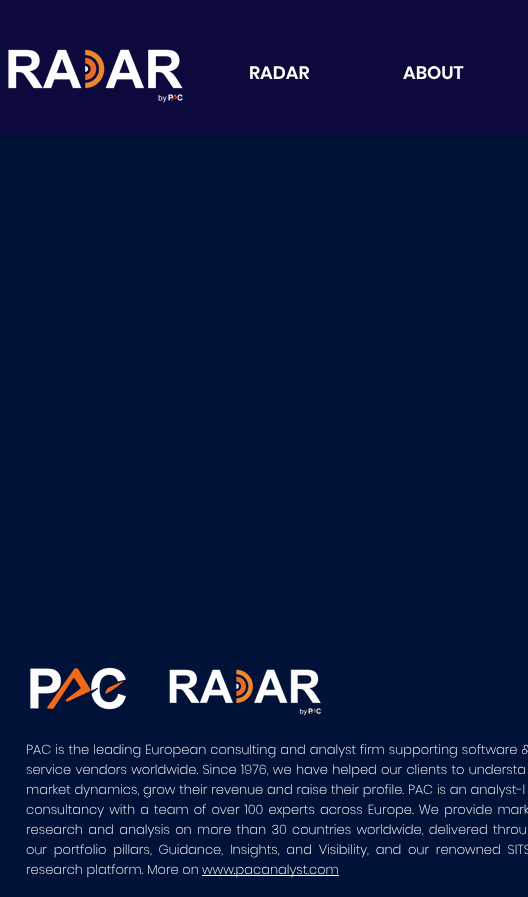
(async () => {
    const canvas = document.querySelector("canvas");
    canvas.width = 528;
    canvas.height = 897;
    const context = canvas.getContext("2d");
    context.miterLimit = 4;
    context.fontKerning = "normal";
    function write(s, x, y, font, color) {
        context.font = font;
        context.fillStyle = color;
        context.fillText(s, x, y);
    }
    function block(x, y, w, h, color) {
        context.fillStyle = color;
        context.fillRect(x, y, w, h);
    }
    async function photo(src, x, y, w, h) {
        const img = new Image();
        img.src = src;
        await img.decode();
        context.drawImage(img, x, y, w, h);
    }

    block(0, 0, 528, 897, "rgb(0, 18, 56)");
    block(0, 0, 528, 136, "rgb(12, 9, 60)");
    await photo("media/1.png", 8, 49, 175, 54);
    write("RADAR", 249, 79, "600 18px Poppins", "rgb(255, 255, 254)");
    write("ABOUT", 403, 79, "600 18px Poppins", "rgb(255, 255, 254)");
    await photo("media/2.png", 30, 667, 96, 43);
    await photo("media/3.png", 169, 669, 152, 47);
    context.wordSpacing = "0.5px";
    write("PAC is the leading European consulting and analyst firm supporting software &", 26, 754, "200 13px Poppins", "rgb(255, 255, 254)");
    context.wordSpacing = "0.75px";
    write("service vendors worldwide. Since 1976, we have helped our clients to understa", 26, 774, "200 13px Poppins", "rgb(255, 255, 254)");
    context.wordSpacing = "0.25px";
    write("market dynamics, grow their revenue and raise their profile. PAC is an analyst-l", 26, 794, "200 13px Poppins", "rgb(255, 255, 254)");
    context.wordSpacing = "1.5px";
    write("consultancy with a team of over 100 experts across Europe. We provide mark", 26, 814, "200 13px Poppins", "rgb(255, 255, 254)");
    context.wordSpacing = "1.75px";
    write("research and analysis on more than 30 countries worldwide, delivered throu", 26, 834, "200 13px Poppins", "rgb(255, 255, 254)");
    context.wordSpacing = "3.25px";
    write("our portfolio pillars, Guidance, Insights, and Visibility, and our renowned SITS", 26, 854, "200 13px Poppins", "rgb(255, 255, 254)");
    context.wordSpacing = "0px";
    write("research platform. More on", 26, 874, "200 13px Poppins", "rgb(255, 255, 254)");
    block(202, 875, 137, 1, "rgb(255, 255, 254)");
    write("www.pacanalyst.com", 202, 874, "200 13px Poppins", "rgb(255, 255, 254)");
})();
